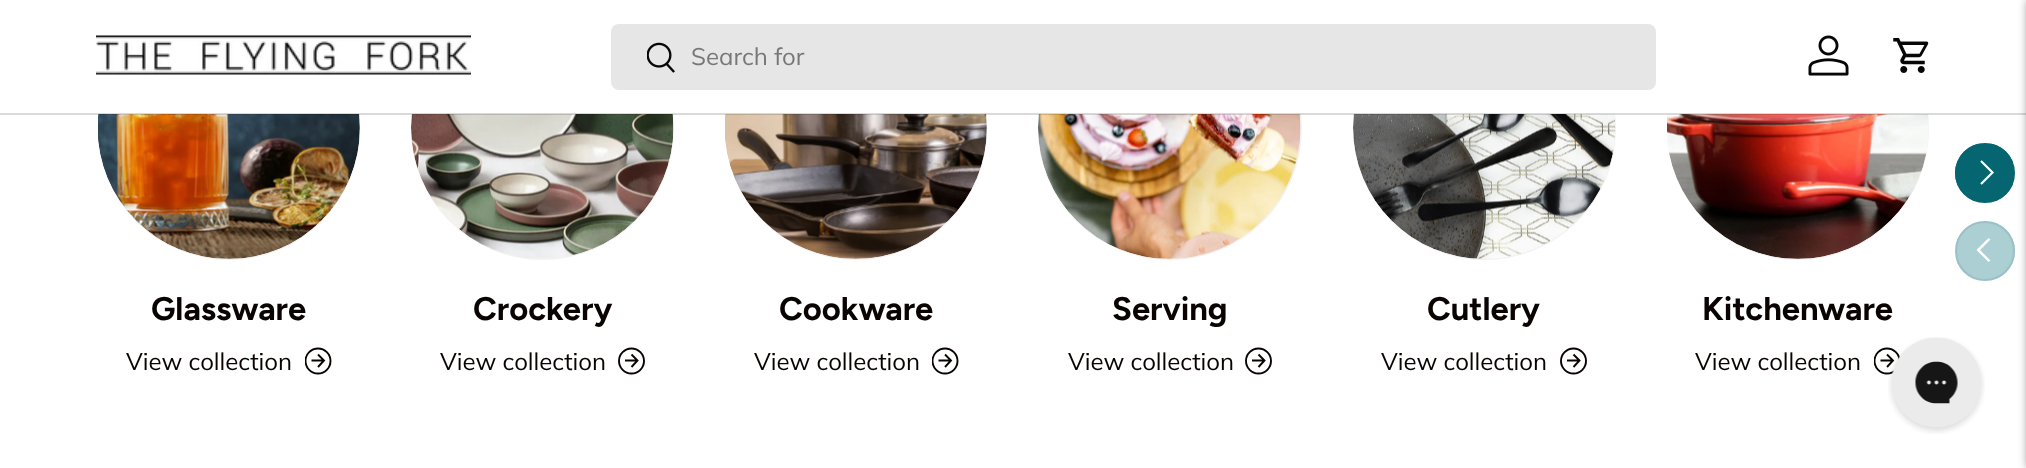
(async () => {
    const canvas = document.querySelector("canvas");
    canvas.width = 2026;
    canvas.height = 468;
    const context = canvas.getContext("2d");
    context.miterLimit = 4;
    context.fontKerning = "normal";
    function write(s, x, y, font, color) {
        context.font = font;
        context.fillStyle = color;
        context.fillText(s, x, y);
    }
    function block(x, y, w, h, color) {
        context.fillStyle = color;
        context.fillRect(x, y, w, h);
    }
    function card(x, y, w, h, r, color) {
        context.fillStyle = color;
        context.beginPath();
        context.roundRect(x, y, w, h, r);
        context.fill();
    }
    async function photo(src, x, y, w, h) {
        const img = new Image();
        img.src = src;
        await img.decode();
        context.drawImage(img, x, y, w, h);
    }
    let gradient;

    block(0, 0, 2026, 468, "rgb(255, 255, 255)");
    card(98, -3, 262, 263, 131, "rgb(242, 242, 242)");
    context.beginPath();
    context.arc(542.5, 128.5, 131.5, 0, Math.PI * 2);
    context.fill();
    card(725, -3, 262, 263, 131, "rgb(242, 242, 242)");
    card(1038, -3, 264, 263, 131.5, "rgb(242, 242, 242)");
    context.beginPath();
    context.arc(1484.5, 128.5, 131.5, 0, Math.PI * 2);
    context.fill();
    card(1667, -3, 262, 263, 131, "rgb(242, 242, 242)");
    block(99, 0, 1829, 114, "rgb(255, 255, 255)");
    await photo("media/5.png", 98, 114, 262, 145);
    await photo("media/6.png", 411, 114, 263, 144);
    await photo("media/7.png", 725, 114, 262, 145);
    await photo("media/8.png", 1038, 114, 263, 145);
    await photo("media/9.png", 1353, 114, 263, 145);
    await photo("media/10.png", 1667, 114, 262, 145);
    block(0, 113, 2026, 2, "rgba(7, 7, 7, 0.15)");
    await photo("media/1.png", 96, 35, 375, 40);
    card(611, 24, 1045, 66, 8, "rgb(230, 230, 230)");
    await photo("media/2.png", 647, 42, 28, 31);
    write("Search for", 691, 65, "24px Muli", "rgb(119, 119, 119)");
    await photo("media/3.png", 1808, 35, 41, 41);
    await photo("media/4.png", 1893, 38, 36, 35);
    context.save();
    context.beginPath();
    context.roundRect(1955, 143, 60, 60, 30);
    context.clip();
    gradient = context.createLinearGradient(1840, 151, 2015, 194);
    gradient.addColorStop(0.6, "rgb(47, 135, 146)");
    gradient.addColorStop(0.6, "rgb(5, 101, 113)");
    gradient.addColorStop(1, "rgb(5, 101, 113)");
    context.fillStyle = gradient;
    context.fillRect(1955, 144, 58, 57);
    context.restore();
    context.beginPath();
    context.arc(1985, 173, 29, 0, Math.PI * 2);
    context.strokeStyle = "rgb(5, 101, 113)";
    context.lineWidth = 2;
    context.stroke();
    context.save();
    context.beginPath();
    context.roundRect(1955, 221, 60, 60, 30);
    context.clip();
    gradient = context.createLinearGradient(1954, 229, 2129, 272);
    gradient.addColorStop(0.6, "rgb(172, 207, 211)");
    gradient.addColorStop(0.6, "rgb(155, 193, 198)");
    gradient.addColorStop(1, "rgb(155, 193, 198)");
    context.fillStyle = gradient;
    context.fillRect(1956, 222, 59, 57);
    context.restore();
    context.beginPath();
    context.arc(1985, 251, 29, 0, Math.PI * 2);
    context.strokeStyle = "rgb(155, 193, 198)";
    context.stroke();
    context.fillStyle = "rgba(0, 0, 0, 0.5)";
    context.filter = "blur(5px)";
    context.beginPath();
    context.rect(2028, 0, 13, 468);
    context.fill();
    context.filter = "none";
    context.beginPath();
    context.moveTo(1981, 161);
    context.lineTo(1992.5, 172.5);
    context.lineTo(1981, 184);
    context.strokeStyle = "rgb(255, 255, 255)";
    context.lineWidth = 2.2;
    context.stroke();
    context.fillStyle = "rgb(255, 255, 255)";
    context.beginPath();
    context.moveTo(1976.5, 250);
    context.lineTo(1988.5, 238);
    context.lineTo(1990.5, 239.5);
    context.lineTo(1980, 250);
    context.lineTo(1990.5, 260.5);
    context.lineTo(1988.5, 262);
    context.closePath();
    context.fill();
    write("Glassware", 151, 320, "bold 32.75px Figtree", "rgb(9, 3, 2)");
    write("View collection", 126, 370, "24px Muli", "rgb(9, 3, 2)");
    context.beginPath();
    context.moveTo(311.5, 360.5);
    context.lineTo(323.5, 360.5);
    context.moveTo(318, 354.5);
    context.lineTo(324, 360.5);
    context.lineTo(318, 367);
    context.strokeStyle = "rgb(9, 3, 2)";
    context.lineWidth = 1.9;
    context.stroke();
    context.save();
    context.beginPath();
    context.rect(305, 347, 27, 28);
    context.clip();
    context.beginPath();
    context.arc(318, 361, 12.5, 0, Math.PI * 2);
    context.stroke();
    context.restore();
    write("Crockery", 473, 320, "bold 32.75px Figtree", "rgb(9, 3, 2)");
    write("View collection", 440, 370, "24px Muli", "rgb(9, 3, 2)");
    context.beginPath();
    context.moveTo(625, 360.5);
    context.lineTo(637, 360.5);
    context.moveTo(631.5, 354.5);
    context.lineTo(637.5, 360.5);
    context.lineTo(631.5, 367);
    context.stroke();
    context.beginPath();
    context.arc(631.5, 361, 12.5, 0, Math.PI * 2);
    context.stroke();
    write("Cookware", 779, 320, "bold 32.75px Figtree", "rgb(9, 3, 2)");
    write("View collection", 754, 370, "24px Muli", "rgb(9, 3, 2)");
    context.beginPath();
    context.moveTo(938.5, 360.5);
    context.lineTo(950.5, 360.5);
    context.moveTo(945, 354.5);
    context.lineTo(951, 360.5);
    context.lineTo(945, 367);
    context.stroke();
    context.save();
    context.beginPath();
    context.rect(932, 347, 27, 28);
    context.clip();
    context.beginPath();
    context.arc(945, 361, 12.5, 0, Math.PI * 2);
    context.stroke();
    context.restore();
    write("Serving", 1112, 320, "bold 32.75px Figtree", "rgb(9, 3, 2)");
    write("View collection", 1068, 370, "24px Muli", "rgb(9, 3, 2)");
    context.beginPath();
    context.moveTo(1252, 360.5);
    context.lineTo(1264, 360.5);
    context.moveTo(1258.5, 354.5);
    context.lineTo(1264.5, 360.5);
    context.lineTo(1258.5, 367);
    context.stroke();
    context.beginPath();
    context.arc(1258.5, 361, 12.5, 0, Math.PI * 2);
    context.stroke();
    write("Cutlery", 1427, 320, "bold 32.75px Figtree", "rgb(9, 3, 2)");
    write("View collection", 1381, 370, "24px Muli", "rgb(9, 3, 2)");
    context.beginPath();
    context.moveTo(1567, 360.5);
    context.lineTo(1579, 360.5);
    context.moveTo(1573.5, 354.5);
    context.lineTo(1579.5, 360.5);
    context.lineTo(1573.5, 367);
    context.stroke();
    context.beginPath();
    context.arc(1573.5, 361, 12.5, 0, Math.PI * 2);
    context.stroke();
    write("Kitchenware", 1702, 320, "bold 32.75px Figtree", "rgb(9, 3, 2)");
    write("View collection", 1695, 370, "24px Muli", "rgb(9, 3, 2)");
    context.beginPath();
    context.moveTo(1880.5, 360.5);
    context.lineTo(1892.5, 360.5);
    context.moveTo(1887, 354.5);
    context.lineTo(1893, 360.5);
    context.lineTo(1887, 367);
    context.stroke();
    context.save();
    context.beginPath();
    context.rect(1874, 347, 27, 28);
    context.clip();
    context.beginPath();
    context.arc(1887, 361, 12.5, 0, Math.PI * 2);
    context.stroke();
    context.restore();
    await photo("media/11.png", 1888, 337, 97, 97);
})();
